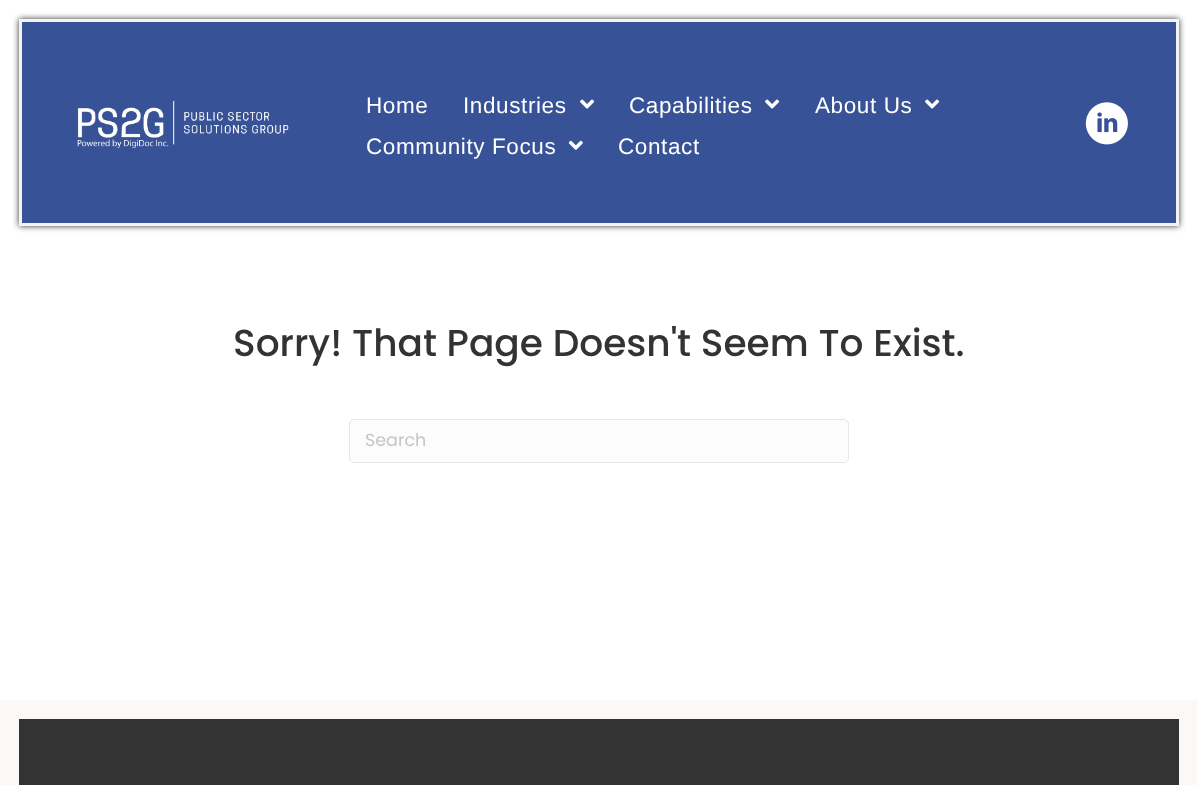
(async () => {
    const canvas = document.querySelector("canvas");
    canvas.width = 1197;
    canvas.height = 785;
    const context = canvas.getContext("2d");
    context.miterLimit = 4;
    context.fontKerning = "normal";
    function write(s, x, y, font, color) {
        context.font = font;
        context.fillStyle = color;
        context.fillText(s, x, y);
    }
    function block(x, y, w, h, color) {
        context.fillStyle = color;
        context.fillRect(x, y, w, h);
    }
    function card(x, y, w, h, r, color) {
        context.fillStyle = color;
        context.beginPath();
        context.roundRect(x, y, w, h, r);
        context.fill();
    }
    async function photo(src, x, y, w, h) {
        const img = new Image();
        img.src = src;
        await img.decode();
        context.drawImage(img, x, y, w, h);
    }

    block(0, 0, 1197, 785, "rgb(250, 249, 246)");
    block(0, 0, 1197, 700, "rgb(255, 255, 255)");
    context.save();
    context.beginPath();
    context.moveTo(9, 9);
    context.lineTo(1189, 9);
    context.lineTo(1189, 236);
    context.lineTo(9, 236);
    context.closePath();
    context.moveTo(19, 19);
    context.lineTo(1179, 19);
    context.lineTo(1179, 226);
    context.lineTo(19, 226);
    context.closePath();
    context.clip("evenodd");
    context.fillStyle = "rgb(51, 51, 51)";
    context.filter = "blur(3px)";
    context.beginPath();
    context.rect(19, 19, 1160, 207);
    context.fill();
    context.filter = "none";
    context.restore();
    context.fillStyle = "rgba(41, 69, 143, 0.93)";
    context.beginPath();
    context.rect(20.5, 20.5, 1157, 204);
    context.fill();
    context.strokeStyle = "rgb(244, 244, 244)";
    context.lineWidth = 3;
    context.stroke();
    await photo("media/1.png", 77, 100, 212, 49);
    context.letterSpacing = "0.6px";
    write("Home", 366, 113, "22.5px Liberation Sans", "rgb(255, 255, 255)");
    write("Industries", 463, 113, "22.5px Liberation Sans", "rgb(255, 255, 255)");
    await photo("media/2.png", 580, 99, 15, 10);
    write("Capabilities", 629, 113, "22.5px Liberation Sans", "rgb(255, 255, 255)");
    await photo("media/2.png", 765, 99, 15, 10);
    write("About Us", 815, 113, "22.5px Liberation Sans", "rgb(255, 255, 255)");
    await photo("media/2.png", 925, 99, 15, 10);
    write("Community Focus", 366, 154, "22.5px Liberation Sans", "rgb(255, 255, 255)");
    await photo("media/3.png", 568, 140, 15, 10);
    write("Contact", 618, 154, "22.5px Liberation Sans", "rgb(255, 255, 255)");
    await photo("media/4.png", 1085, 102, 43, 43);
    context.letterSpacing = "0px";
    write("Sorry! That Page Doesn't Seem To Exist.", 233, 356, "500 37.5px Poppins", "rgb(51, 51, 51)");
    card(350, 420, 498, 41, 4, "rgb(252, 252, 252)");
    context.beginPath();
    context.roundRect(349.5, 419.5, 499, 43, 4.5);
    context.strokeStyle = "rgb(230, 230, 230)";
    context.lineWidth = 1;
    context.stroke();
    write("Search", 365, 446, "17.5px Poppins", "rgb(198, 198, 198)");
    block(19, 719, 1160, 66, "rgb(51, 51, 51)");
})();
